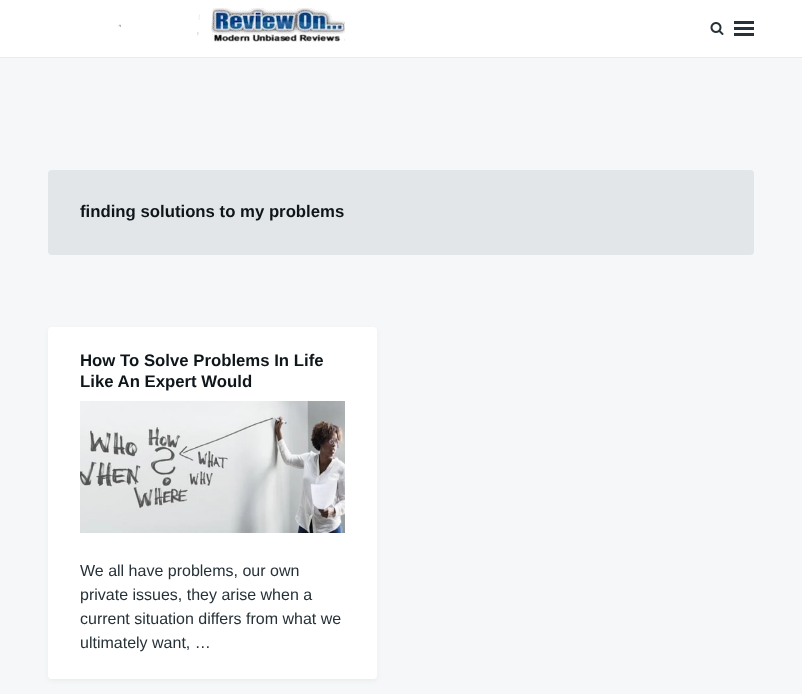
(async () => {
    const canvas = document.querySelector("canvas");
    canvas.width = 802;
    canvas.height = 694;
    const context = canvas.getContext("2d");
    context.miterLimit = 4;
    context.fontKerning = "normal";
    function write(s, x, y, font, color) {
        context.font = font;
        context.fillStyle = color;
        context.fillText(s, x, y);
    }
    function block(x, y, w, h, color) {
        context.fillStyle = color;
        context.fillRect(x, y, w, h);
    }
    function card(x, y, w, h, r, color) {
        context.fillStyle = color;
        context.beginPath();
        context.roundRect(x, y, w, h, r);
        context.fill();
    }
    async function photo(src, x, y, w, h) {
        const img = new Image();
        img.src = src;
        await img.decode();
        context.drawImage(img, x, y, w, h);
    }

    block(0, 0, 802, 694, "rgb(245, 247, 248)");
    block(0, 0, 802, 57, "rgb(255, 255, 255)");
    block(0, 57, 802, 1, "rgb(233, 235, 235)");
    await photo("media/1.png", 117, 8, 228, 35);
    await photo("media/2.png", 710, 22, 14, 13);
    block(734, 21, 20, 3, "rgb(38, 50, 56)");
    block(734, 27, 20, 3, "rgb(38, 50, 56)");
    block(734, 33, 20, 3, "rgb(38, 50, 56)");
    card(48, 170, 706, 85, 4, "rgb(226, 230, 233)");
    write("finding solutions to my problems", 80, 217, "bold 16.75px Liberation Sans", "rgb(15, 22, 26)");
    context.fillStyle = "rgba(38, 50, 56, 0.05)";
    context.filter = "blur(2px)";
    context.beginPath();
    context.roundRect(48, 329, 329, 352, 4);
    context.fill();
    context.filter = "none";
    card(48, 327, 329, 352, 4, "rgb(255, 255, 255)");
    write("How To Solve Problems In Life", 80, 366, "bold 16.75px Liberation Sans", "rgb(15, 22, 26)");
    write("Like An Expert Would", 80, 387, "bold 16.75px Liberation Sans", "rgb(15, 22, 26)");
    await photo("media/3.png", 80, 401, 265, 132);
    write("We all have problems, our own", 80, 576, "16px Liberation Sans", "rgb(38, 50, 56)");
    write("private issues, they arise when a", 80, 600, "16px Liberation Sans", "rgb(38, 50, 56)");
    write("current situation differs from what we", 80, 624, "16px Liberation Sans", "rgb(38, 50, 56)");
    write("ultimately want, …", 80, 648, "16px Liberation Sans", "rgb(38, 50, 56)");
})();
